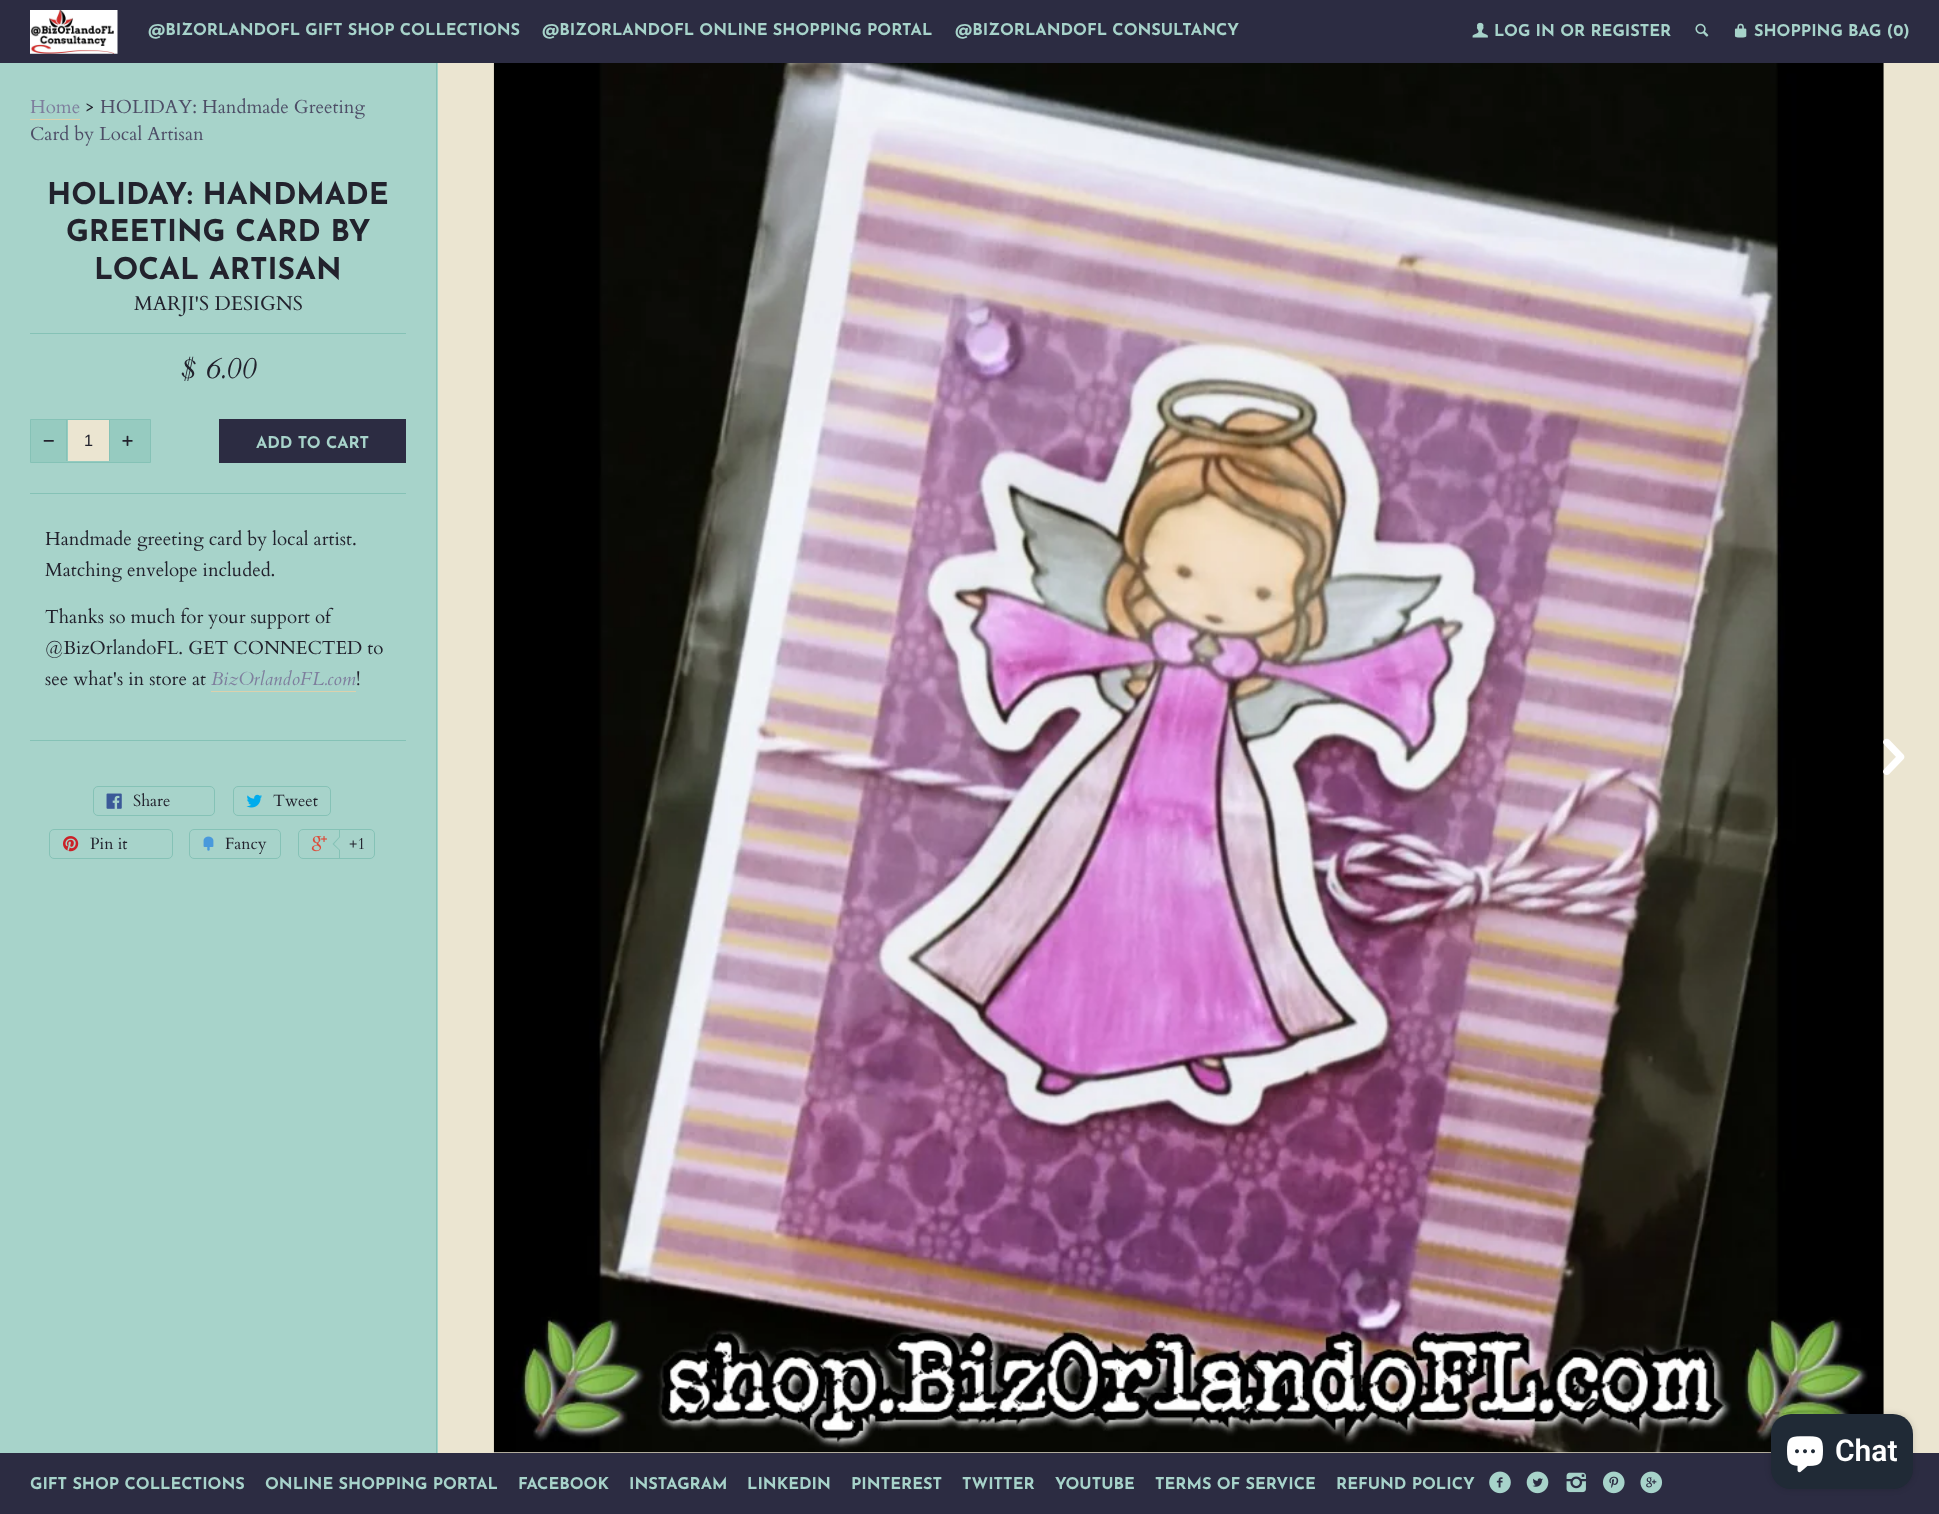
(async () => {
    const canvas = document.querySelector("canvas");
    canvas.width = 1939;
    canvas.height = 1514;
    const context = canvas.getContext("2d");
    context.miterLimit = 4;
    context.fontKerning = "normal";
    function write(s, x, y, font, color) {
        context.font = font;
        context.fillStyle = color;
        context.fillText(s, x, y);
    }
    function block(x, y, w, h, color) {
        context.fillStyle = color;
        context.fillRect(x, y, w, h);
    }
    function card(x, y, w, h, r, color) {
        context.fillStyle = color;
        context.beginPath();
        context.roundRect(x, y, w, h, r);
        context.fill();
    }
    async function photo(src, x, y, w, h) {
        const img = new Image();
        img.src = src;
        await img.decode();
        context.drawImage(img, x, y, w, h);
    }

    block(0, 0, 1939, 1514, "rgb(235, 229, 209)");
    block(0, 0, 1939, 63, "rgb(44, 44, 66)");
    await photo("media/1.png", 30, 10, 88, 44);
    write("@BIZORLANDOFL GIFT SHOP COLLECTIONS", 148, 35, "bold 16.25px Josefin Sans", "rgb(167, 211, 202)");
    write("@BIZORLANDOFL ONLINE SHOPPING PORTAL", 542, 35, "bold 16.25px Josefin Sans", "rgb(167, 211, 202)");
    write("@BIZORLANDOFL CONSULTANCY", 955, 35, "bold 16.25px Josefin Sans", "rgb(167, 211, 202)");
    await photo("media/2.png", 1472, 22, 16, 16);
    write("LOG IN OR REGISTER", 1494, 36, "bold 16.25px Josefin Sans", "rgb(167, 211, 202)");
    await photo("media/3.png", 1695, 23, 14, 14);
    await photo("media/4.png", 1734, 23, 13, 15);
    write("SHOPPING BAG (0", 1754, 36, "bold 16.25px Josefin Sans", "rgb(167, 211, 202)");
    write(")", 1903, 36, "bold 16.25px Josefin Sans", "rgb(167, 211, 202)");
    block(0, 63, 438, 1390, "rgb(167, 211, 202)");
    block(436, 63, 1, 1390, "rgb(133, 194, 182)");
    write("Home", 30, 113, "18.75px Cardo", "rgb(126, 126, 157)");
    block(30, 119, 50, 1, "rgb(220, 209, 173)");
    write(">", 85, 113, "18.75px Cardo", "rgb(34, 34, 45)");
    write("HOLIDAY: Handmade Greeting", 100, 113, "18.75px Cardo", "rgb(78, 78, 103)");
    write("Card by Local Artisan", 30, 140, "18.75px Cardo", "rgb(78, 78, 103)");
    write("HOLIDAY: HANDMADE", 47, 204, "bold 30px Josefin Sans", "rgb(34, 34, 45)");
    write("GREETING CARD BY", 66, 241, "bold 30px Josefin Sans", "rgb(34, 34, 45)");
    write("LOCAL ARTISAN", 94, 279, "bold 30px Josefin Sans", "rgb(34, 34, 45)");
    block(30, 333, 376, 1, "rgb(133, 194, 182)");
    write("MARJI'S DESIGNS", 134, 310, "20px Cardo", "rgb(34, 34, 45)");
    write("$ 6.00", 181, 378, "italic 30px Cardo", "rgb(34, 34, 45)");
    context.fillStyle = "rgb(150, 203, 192)";
    context.beginPath();
    context.rect(30.5, 419.5, 120, 43);
    context.fill();
    context.strokeStyle = "rgb(133, 194, 182)";
    context.stroke();
    await photo("media/5.png", 43, 440, 11, 2);
    block(68, 420, 41, 41, "rgb(235, 229, 209)");
    block(109, 420, 1, 41, "rgb(133, 194, 182)");
    block(66, 420, 1, 41, "rgb(133, 194, 182)");
    write("1", 84, 446, "16.25px Liberation Sans", "rgb(34, 34, 45)");
    await photo("media/6.png", 122, 435, 11, 11);
    block(219, 419, 187, 44, "rgb(44, 44, 66)");
    write("ADD TO CART", 256, 448, "bold 16.25px Josefin Sans", "rgb(167, 211, 202)");
    block(30, 493, 376, 1, "rgb(133, 194, 182)");
    block(30, 740, 376, 1, "rgb(133, 194, 182)");
    write("Handmade greeting card by local artist.", 45, 545, "18.75px Cardo", "rgb(34, 34, 45)");
    write("Matching envelope included.", 45, 576, "18.75px Cardo", "rgb(34, 34, 45)");
    write("Thanks so much for your support of", 45, 623, "18.75px Cardo", "rgb(34, 34, 45)");
    write("@BizOrlandoFL. GET CONNECTED to", 45, 654, "18.75px Cardo", "rgb(34, 34, 45)");
    write("see what's in store at", 45, 685, "18.75px Cardo", "rgb(34, 34, 45)");
    write("BizOrlandoFL.com", 211, 685, "italic 18.75px Cardo", "rgb(126, 126, 157)");
    block(211, 691, 145, 1, "rgb(220, 209, 173)");
    write("!", 356, 685, "18.75px Cardo", "rgb(34, 34, 45)");
    context.beginPath();
    context.roundRect(93.5, 786.5, 121, 29, 4.5);
    context.stroke();
    await photo("media/7.png", 106, 793, 16, 16);
    write("Share", 133, 806, "16.25px Cardo", "rgb(34, 34, 45)");
    context.beginPath();
    context.roundRect(233.5, 786.5, 97, 29, 4.5);
    context.stroke();
    await photo("media/8.png", 246, 794, 16, 14);
    write("Tweet", 273, 806, "16.25px Cardo", "rgb(34, 34, 45)");
    context.beginPath();
    context.roundRect(49.5, 829.5, 123, 29, 4.5);
    context.stroke();
    await photo("media/9.png", 63, 836, 16, 16);
    write("Pin it", 90, 849, "16.25px Cardo", "rgb(34, 34, 45)");
    context.beginPath();
    context.roundRect(189.5, 829.5, 91, 29, 4.5);
    context.stroke();
    await photo("media/10.png", 203, 836, 11, 15);
    write("Fancy", 225, 849, "16.25px Cardo", "rgb(34, 34, 45)");
    context.beginPath();
    context.roundRect(298.5, 829.5, 76, 29, 4.5);
    context.stroke();
    await photo("media/11.png", 311, 836, 16, 16);
    block(339, 830, 1, 28, "rgb(133, 194, 182)");
    context.beginPath();
    context.moveTo(340, 836);
    context.lineTo(340, 851);
    context.lineTo(332.5, 844);
    context.closePath();
    context.fill();
    context.fillStyle = "rgb(167, 211, 202)";
    context.beginPath();
    context.moveTo(341, 836);
    context.lineTo(341, 851);
    context.lineTo(334, 844);
    context.closePath();
    context.fill();
    write("+1", 349, 849, "16.25px Cardo", "rgb(34, 34, 45)");
    await photo("media/12.png", 493, 63, 1391, 1390);
    await photo("media/13.png", 1883, 738, 22, 37);
    block(0, 1453, 1939, 61, "rgb(44, 44, 66)");
    context.fillStyle = "rgba(0, 0, 0, 0.15)";
    context.filter = "blur(3px)";
    context.beginPath();
    context.roundRect(1771, 1414, 142, 75, 20);
    context.fill();
    context.filter = "none";
    card(1771, 1414, 142, 75, 20, "rgb(32, 42, 54)");
    await photo("media/14.png", 1787, 1436, 36, 37);
    write("Chat", 1835, 1461, "600 30px Roboto", "rgb(255, 255, 255)");
    write("GIFT SHOP COLLECTIONS", 30, 1489, "bold 16.25px Josefin Sans", "rgb(167, 211, 202)");
    write("ONLINE SHOPPING PORTAL", 265, 1489, "bold 16.25px Josefin Sans", "rgb(167, 211, 202)");
    write("FACEBOOK", 518, 1489, "bold 16.25px Josefin Sans", "rgb(167, 211, 202)");
    write("INSTAGRAM", 629, 1489, "bold 16.25px Josefin Sans", "rgb(167, 211, 202)");
    write("LINKEDIN", 747, 1489, "bold 16.25px Josefin Sans", "rgb(167, 211, 202)");
    write("PINTEREST", 851, 1489, "bold 16.25px Josefin Sans", "rgb(167, 211, 202)");
    write("TWITTER", 962, 1489, "bold 16.25px Josefin Sans", "rgb(167, 211, 202)");
    write("YOUTUBE", 1055, 1489, "bold 16.25px Josefin Sans", "rgb(167, 211, 202)");
    write("TERMS OF SERVICE", 1155, 1489, "bold 16.25px Josefin Sans", "rgb(167, 211, 202)");
    write("REFUND POLICY", 1336, 1489, "bold 16.25px Josefin Sans", "rgb(167, 211, 202)");
    await photo("media/15.png", 1489, 1471, 22, 23);
    await photo("media/16.png", 1526, 1471, 23, 23);
    await photo("media/17.png", 1566, 1472, 20, 21);
    await photo("media/18.png", 1602, 1471, 23, 23);
    await photo("media/19.png", 1640, 1471, 23, 23);
})();
